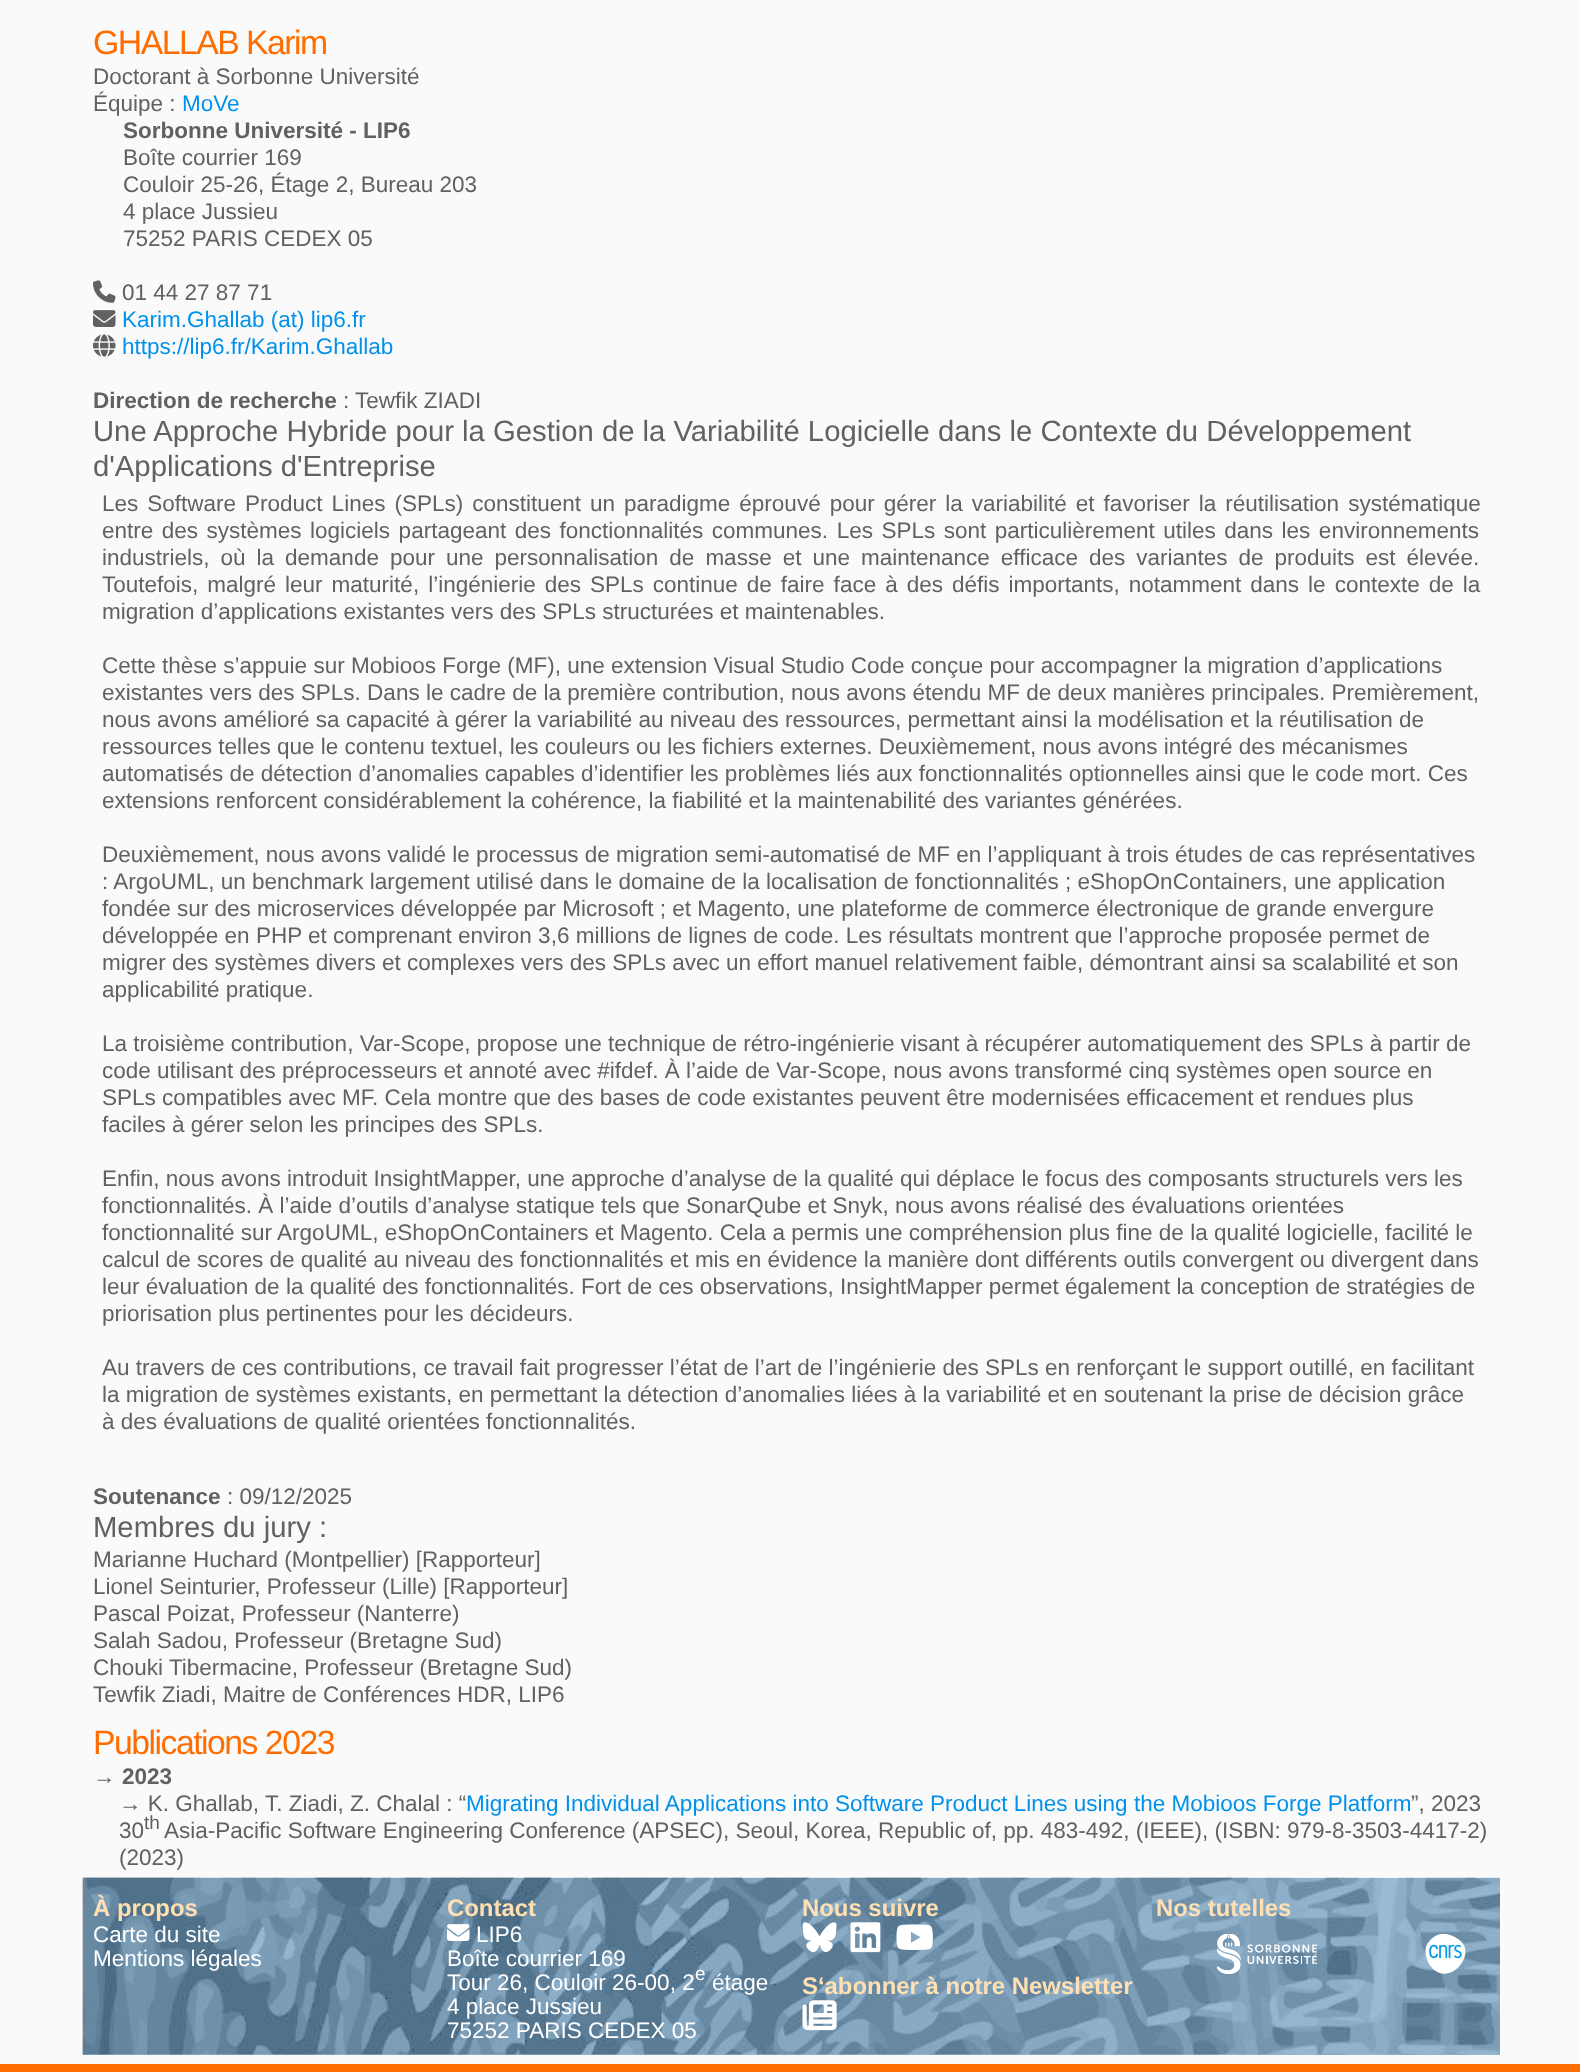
(async () => {
    const canvas = document.querySelector("canvas");
    canvas.width = 1580;
    canvas.height = 2072;
    const context = canvas.getContext("2d");
    context.miterLimit = 4;
    context.fontKerning = "normal";
    function write(s, x, y, font, color) {
        context.font = font;
        context.fillStyle = color;
        context.fillText(s, x, y);
    }
    function block(x, y, w, h, color) {
        context.fillStyle = color;
        context.fillRect(x, y, w, h);
    }
    async function photo(src, x, y, w, h) {
        const img = new Image();
        img.src = src;
        await img.decode();
        context.drawImage(img, x, y, w, h);
    }

    block(0, 0, 1580, 2072, "rgb(250, 250, 250)");
    block(83, 1878, 1417, 177, "rgb(155, 188, 214)");
    block(0, 2064, 1580, 8, "rgb(255, 109, 0)");
    context.letterSpacing = "-1.5px";
    write("GHALLAB Karim", 93, 54, "33.75px Liberation Sans", "rgb(255, 109, 0)");
    context.letterSpacing = "0px";
    write("Doctorant à Sorbonne Université", 93, 84, "22.5px Liberation Sans", "rgb(97, 97, 97)");
    write("Équipe :", 93, 111, "22.5px Liberation Sans", "rgb(97, 97, 97)");
    write("MoVe", 182, 111, "22.5px Liberation Sans", "rgb(0, 145, 234)");
    write("Sorbonne Université - LIP6", 123, 138, "bold 22.5px Liberation Sans", "rgb(97, 97, 97)");
    write("Boîte courrier 169", 123, 165, "22.5px Liberation Sans", "rgb(97, 97, 97)");
    write("Couloir 25-26, Étage 2, Bureau 203", 123, 192, "22.5px Liberation Sans", "rgb(97, 97, 97)");
    write("4 place Jussieu", 123, 219, "22.5px Liberation Sans", "rgb(97, 97, 97)");
    write("75252 PARIS CEDEX 05", 123, 246, "22.5px Liberation Sans", "rgb(97, 97, 97)");
    await photo("media/1.png", 93, 280, 23, 23);
    write("01 44 27 87 71", 122, 300, "22.5px Liberation Sans", "rgb(97, 97, 97)");
    await photo("media/2.png", 93, 310, 23, 17);
    write("Karim.Ghallab (at) lip6.fr", 122, 327, "22.5px Liberation Sans", "rgb(0, 145, 234)");
    await photo("media/3.png", 93, 334, 23, 23);
    write("https://lip6.fr/Karim.Ghallab", 122, 354, "22.5px Liberation Sans", "rgb(0, 145, 234)");
    write("Direction de recherche", 93, 408, "bold 22.5px Liberation Sans", "rgb(97, 97, 97)");
    write(": Tewfik ZIADI", 343, 408, "22.5px Liberation Sans", "rgb(97, 97, 97)");
    write("Une Approche Hybride pour la Gestion de la Variabilité Logicielle dans le Contexte du Développement", 93, 441, "29.25px Liberation Sans", "rgb(97, 97, 97)");
    write("d'Applications d'Entreprise", 93, 476, "29.25px Liberation Sans", "rgb(97, 97, 97)");
    context.wordSpacing = "2.75px";
    write("Les Software Product Lines (SPLs) constituent un paradigme éprouvé pour gérer la variabilité et favoriser la réutilisation systématique", 102, 511, "22.5px Liberation Sans", "rgb(97, 97, 97)");
    context.wordSpacing = "2.25px";
    write("entre des systèmes logiciels partageant des fonctionnalités communes. Les SPLs sont particulièrement utiles dans les environnements", 102, 538, "22.5px Liberation Sans", "rgb(97, 97, 97)");
    context.wordSpacing = "4.75px";
    write("industriels, où la demande pour une personnalisation de masse et une maintenance efficace des variantes de produits est élevée.", 102, 565, "22.5px Liberation Sans", "rgb(97, 97, 97)");
    context.wordSpacing = "2.75px";
    write("Toutefois, malgré leur maturité, l’ingénierie des SPLs continue de faire face à des défis importants, notamment dans le contexte de la", 102, 592, "22.5px Liberation Sans", "rgb(97, 97, 97)");
    context.wordSpacing = "0px";
    write("migration d’applications existantes vers des SPLs structurées et maintenables.", 102, 619, "22.5px Liberation Sans", "rgb(97, 97, 97)");
    write("Cette thèse s’appuie sur Mobioos Forge (MF), une extension Visual Studio Code conçue pour accompagner la migration d’applications", 102, 673, "22.5px Liberation Sans", "rgb(97, 97, 97)");
    write("existantes vers des SPLs. Dans le cadre de la première contribution, nous avons étendu MF de deux manières principales. Premièrement,", 102, 700, "22.5px Liberation Sans", "rgb(97, 97, 97)");
    write("nous avons amélioré sa capacité à gérer la variabilité au niveau des ressources, permettant ainsi la modélisation et la réutilisation de", 102, 727, "22.5px Liberation Sans", "rgb(97, 97, 97)");
    write("ressources telles que le contenu textuel, les couleurs ou les fichiers externes. Deuxièmement, nous avons intégré des mécanismes", 102, 754, "22.5px Liberation Sans", "rgb(97, 97, 97)");
    write("automatisés de détection d’anomalies capables d’identifier les problèmes liés aux fonctionnalités optionnelles ainsi que le code mort. Ces", 102, 781, "22.5px Liberation Sans", "rgb(97, 97, 97)");
    write("extensions renforcent considérablement la cohérence, la fiabilité et la maintenabilité des variantes générées.", 102, 808, "22.5px Liberation Sans", "rgb(97, 97, 97)");
    write("Deuxièmement, nous avons validé le processus de migration semi-automatisé de MF en l’appliquant à trois études de cas représentatives", 102, 862, "22.5px Liberation Sans", "rgb(97, 97, 97)");
    write(": ArgoUML, un benchmark largement utilisé dans le domaine de la localisation de fonctionnalités ; eShopOnContainers, une application", 102, 889, "22.5px Liberation Sans", "rgb(97, 97, 97)");
    write("fondée sur des microservices développée par Microsoft ; et Magento, une plateforme de commerce électronique de grande envergure", 102, 916, "22.5px Liberation Sans", "rgb(97, 97, 97)");
    write("développée en PHP et comprenant environ 3,6 millions de lignes de code. Les résultats montrent que l’approche proposée permet de", 102, 943, "22.5px Liberation Sans", "rgb(97, 97, 97)");
    write("migrer des systèmes divers et complexes vers des SPLs avec un effort manuel relativement faible, démontrant ainsi sa scalabilité et son", 102, 970, "22.5px Liberation Sans", "rgb(97, 97, 97)");
    write("applicabilité pratique.", 102, 997, "22.5px Liberation Sans", "rgb(97, 97, 97)");
    write("La troisième contribution, Var-Scope, propose une technique de rétro-ingénierie visant à récupérer automatiquement des SPLs à partir de", 102, 1051, "22.5px Liberation Sans", "rgb(97, 97, 97)");
    write("code utilisant des préprocesseurs et annoté avec #ifdef. À l’aide de Var-Scope, nous avons transformé cinq systèmes open source en", 102, 1078, "22.5px Liberation Sans", "rgb(97, 97, 97)");
    write("SPLs compatibles avec MF. Cela montre que des bases de code existantes peuvent être modernisées efficacement et rendues plus", 102, 1105, "22.5px Liberation Sans", "rgb(97, 97, 97)");
    write("faciles à gérer selon les principes des SPLs.", 102, 1132, "22.5px Liberation Sans", "rgb(97, 97, 97)");
    write("Enfin, nous avons introduit InsightMapper, une approche d’analyse de la qualité qui déplace le focus des composants structurels vers les", 102, 1186, "22.5px Liberation Sans", "rgb(97, 97, 97)");
    write("fonctionnalités. À l’aide d’outils d’analyse statique tels que SonarQube et Snyk, nous avons réalisé des évaluations orientées", 102, 1213, "22.5px Liberation Sans", "rgb(97, 97, 97)");
    write("fonctionnalité sur ArgoUML, eShopOnContainers et Magento. Cela a permis une compréhension plus fine de la qualité logicielle, facilité le", 102, 1240, "22.5px Liberation Sans", "rgb(97, 97, 97)");
    write("calcul de scores de qualité au niveau des fonctionnalités et mis en évidence la manière dont différents outils convergent ou divergent dans", 102, 1267, "22.5px Liberation Sans", "rgb(97, 97, 97)");
    write("leur évaluation de la qualité des fonctionnalités. Fort de ces observations, InsightMapper permet également la conception de stratégies de", 102, 1294, "22.5px Liberation Sans", "rgb(97, 97, 97)");
    write("priorisation plus pertinentes pour les décideurs.", 102, 1321, "22.5px Liberation Sans", "rgb(97, 97, 97)");
    write("Au travers de ces contributions, ce travail fait progresser l’état de l’art de l’ingénierie des SPLs en renforçant le support outillé, en facilitant", 102, 1375, "22.5px Liberation Sans", "rgb(97, 97, 97)");
    write("la migration de systèmes existants, en permettant la détection d’anomalies liées à la variabilité et en soutenant la prise de décision grâce", 102, 1402, "22.5px Liberation Sans", "rgb(97, 97, 97)");
    write("à des évaluations de qualité orientées fonctionnalités.", 102, 1429, "22.5px Liberation Sans", "rgb(97, 97, 97)");
    write("Soutenance", 93, 1504, "bold 22.5px Liberation Sans", "rgb(97, 97, 97)");
    write(": 09/12/2025", 227, 1504, "22.5px Liberation Sans", "rgb(97, 97, 97)");
    write("Membres du jury :", 93, 1537, "29.25px Liberation Sans", "rgb(97, 97, 97)");
    write("Marianne Huchard (Montpellier) [Rapporteur]", 93, 1567, "22.5px Liberation Sans", "rgb(97, 97, 97)");
    write("Lionel Seinturier, Professeur (Lille) [Rapporteur]", 93, 1594, "22.5px Liberation Sans", "rgb(97, 97, 97)");
    write("Pascal Poizat, Professeur (Nanterre)", 93, 1621, "22.5px Liberation Sans", "rgb(97, 97, 97)");
    write("Salah Sadou, Professeur (Bretagne Sud)", 93, 1648, "22.5px Liberation Sans", "rgb(97, 97, 97)");
    write("Chouki Tibermacine, Professeur (Bretagne Sud)", 93, 1675, "22.5px Liberation Sans", "rgb(97, 97, 97)");
    write("Tewfik Ziadi, Maitre de Conférences HDR, LIP6", 93, 1702, "22.5px Liberation Sans", "rgb(97, 97, 97)");
    context.letterSpacing = "-1.5px";
    write("Publications 2023", 93, 1754, "33.75px Liberation Sans", "rgb(255, 109, 0)");
    context.letterSpacing = "0px";
    write("→", 93, 1784, "22.5px Liberation Sans", "rgb(97, 97, 97)");
    write("2023", 122, 1784, "bold 22.5px Liberation Sans", "rgb(97, 97, 97)");
    write("→ K. Ghallab, T. Ziadi, Z. Chalal : “", 119, 1811, "22.5px Liberation Sans", "rgb(97, 97, 97)");
    write("Migrating Individual Applications into Software Product Lines using the Mobioos Forge Platform", 466, 1811, "22.5px Liberation Sans", "rgb(0, 145, 234)");
    write("”, 2023", 1411, 1811, "22.5px Liberation Sans", "rgb(97, 97, 97)");
    write("30", 119, 1838, "22.5px Liberation Sans", "rgb(97, 97, 97)");
    write("th", 144, 1829, "19px Liberation Sans", "rgb(97, 97, 97)");
    write("Asia-Pacific Software Engineering Conference (APSEC), Seoul, Korea, Republic of, pp. 483-492, (IEEE), (ISBN: 979-8-3503-4417-2)", 164, 1838, "22.5px Liberation Sans", "rgb(97, 97, 97)");
    write("(2023)", 119, 1865, "22.5px Liberation Sans", "rgb(97, 97, 97)");
    await photo("media/4.png", 82, 1877, 1418, 178);
    write("À propos", 93, 1916, "bold 23.9px Liberation Sans", "rgb(255, 224, 178)");
    write("Carte du site", 93, 1942, "22.5px Liberation Sans", "rgb(255, 255, 255)");
    write("Mentions légales", 93, 1966, "22.5px Liberation Sans", "rgb(255, 255, 255)");
    write("Contact", 447, 1916, "bold 23.9px Liberation Sans", "rgb(255, 224, 178)");
    await photo("media/5.png", 447, 1924, 23, 17);
    write("LIP6", 476, 1942, "22.5px Liberation Sans", "rgb(255, 255, 255)");
    write("Boîte courrier 169", 447, 1966, "22.5px Liberation Sans", "rgb(255, 255, 255)");
    write("Tour 26, Couloir 26-00, 2", 447, 1990, "22.5px Liberation Sans", "rgb(255, 255, 255)");
    write("e", 695, 1980, "19px Liberation Sans", "rgb(255, 255, 255)");
    write("étage", 712, 1990, "22.5px Liberation Sans", "rgb(255, 255, 255)");
    write("4 place Jussieu", 447, 2014, "22.5px Liberation Sans", "rgb(255, 255, 255)");
    write("75252 PARIS CEDEX 05", 447, 2038, "22.5px Liberation Sans", "rgb(255, 255, 255)");
    write("Nous suivre", 802, 1916, "bold 23.9px Liberation Sans", "rgb(255, 224, 178)");
    await photo("media/6.png", 802, 1922, 35, 31);
    await photo("media/7.png", 850, 1922, 31, 31);
    await photo("media/8.png", 896, 1924, 37, 26);
    write("S‘abonner à notre Newsletter", 802, 1994, "bold 23.9px Liberation Sans", "rgb(255, 224, 178)");
    await photo("media/9.png", 802, 2000, 35, 31);
    write("Nos tutelles", 1156, 1916, "bold 23.9px Liberation Sans", "rgb(255, 224, 178)");
    await photo("media/10.png", 1217, 1934, 100, 40);
    await photo("media/11.png", 1425, 1934, 41, 40);
})();
